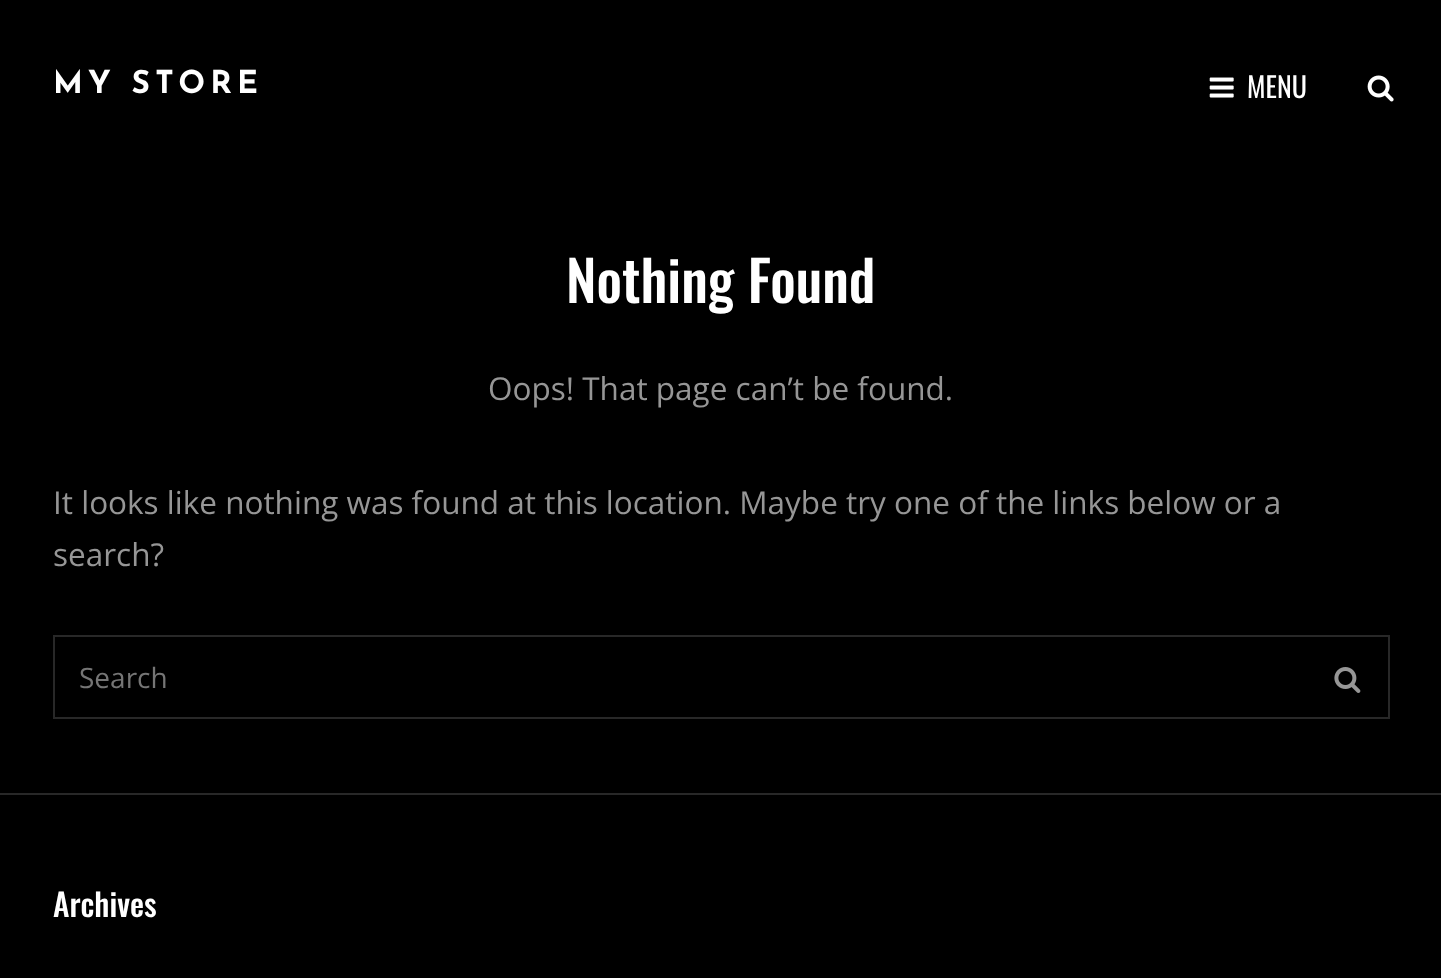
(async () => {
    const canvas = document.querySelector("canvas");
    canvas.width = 1441;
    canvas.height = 978;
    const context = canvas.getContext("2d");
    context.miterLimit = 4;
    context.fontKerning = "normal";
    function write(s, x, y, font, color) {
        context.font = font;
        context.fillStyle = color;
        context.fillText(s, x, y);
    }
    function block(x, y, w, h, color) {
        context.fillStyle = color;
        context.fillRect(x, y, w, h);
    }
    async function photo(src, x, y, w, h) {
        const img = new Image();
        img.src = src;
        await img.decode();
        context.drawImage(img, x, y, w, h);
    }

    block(0, 0, 1441, 978, "rgb(0, 0, 0)");
    context.letterSpacing = "5.25px";
    write("MY STORE", 53, 93, "bold 31.5px Josefin Sans", "rgb(255, 255, 255)");
    await photo("media/1.png", 1209, 77, 25, 21);
    context.letterSpacing = "0px";
    write("MENU", 1247, 98, "28px Oswald", "rgb(255, 255, 255)");
    await photo("media/2.png", 1367, 75, 27, 27);
    write("Nothing Found", 566, 303, "500 56px Oswald", "rgb(255, 255, 255)");
    write("Oops! That page can’t be found.", 488, 400, "31.5px Open Sans", "rgb(150, 150, 150)");
    write("It looks like nothing was found at this location. Maybe try one of the links below or a", 53, 514, "31.5px Open Sans", "rgb(150, 150, 150)");
    write("search?", 53, 566, "31.5px Open Sans", "rgb(150, 150, 150)");
    context.strokeStyle = "rgb(40, 40, 40)";
    context.lineWidth = 2;
    context.strokeRect(54, 636, 1335, 82);
    write("Search", 79, 688, "28px Open Sans", "rgb(117, 117, 117)");
    await photo("media/3.png", 1334, 667, 27, 26);
    block(0, 793, 1441, 2, "rgb(40, 40, 40)");
    write("Archives", 53, 917, "500 31.5px Oswald", "rgb(255, 255, 255)");
})();
